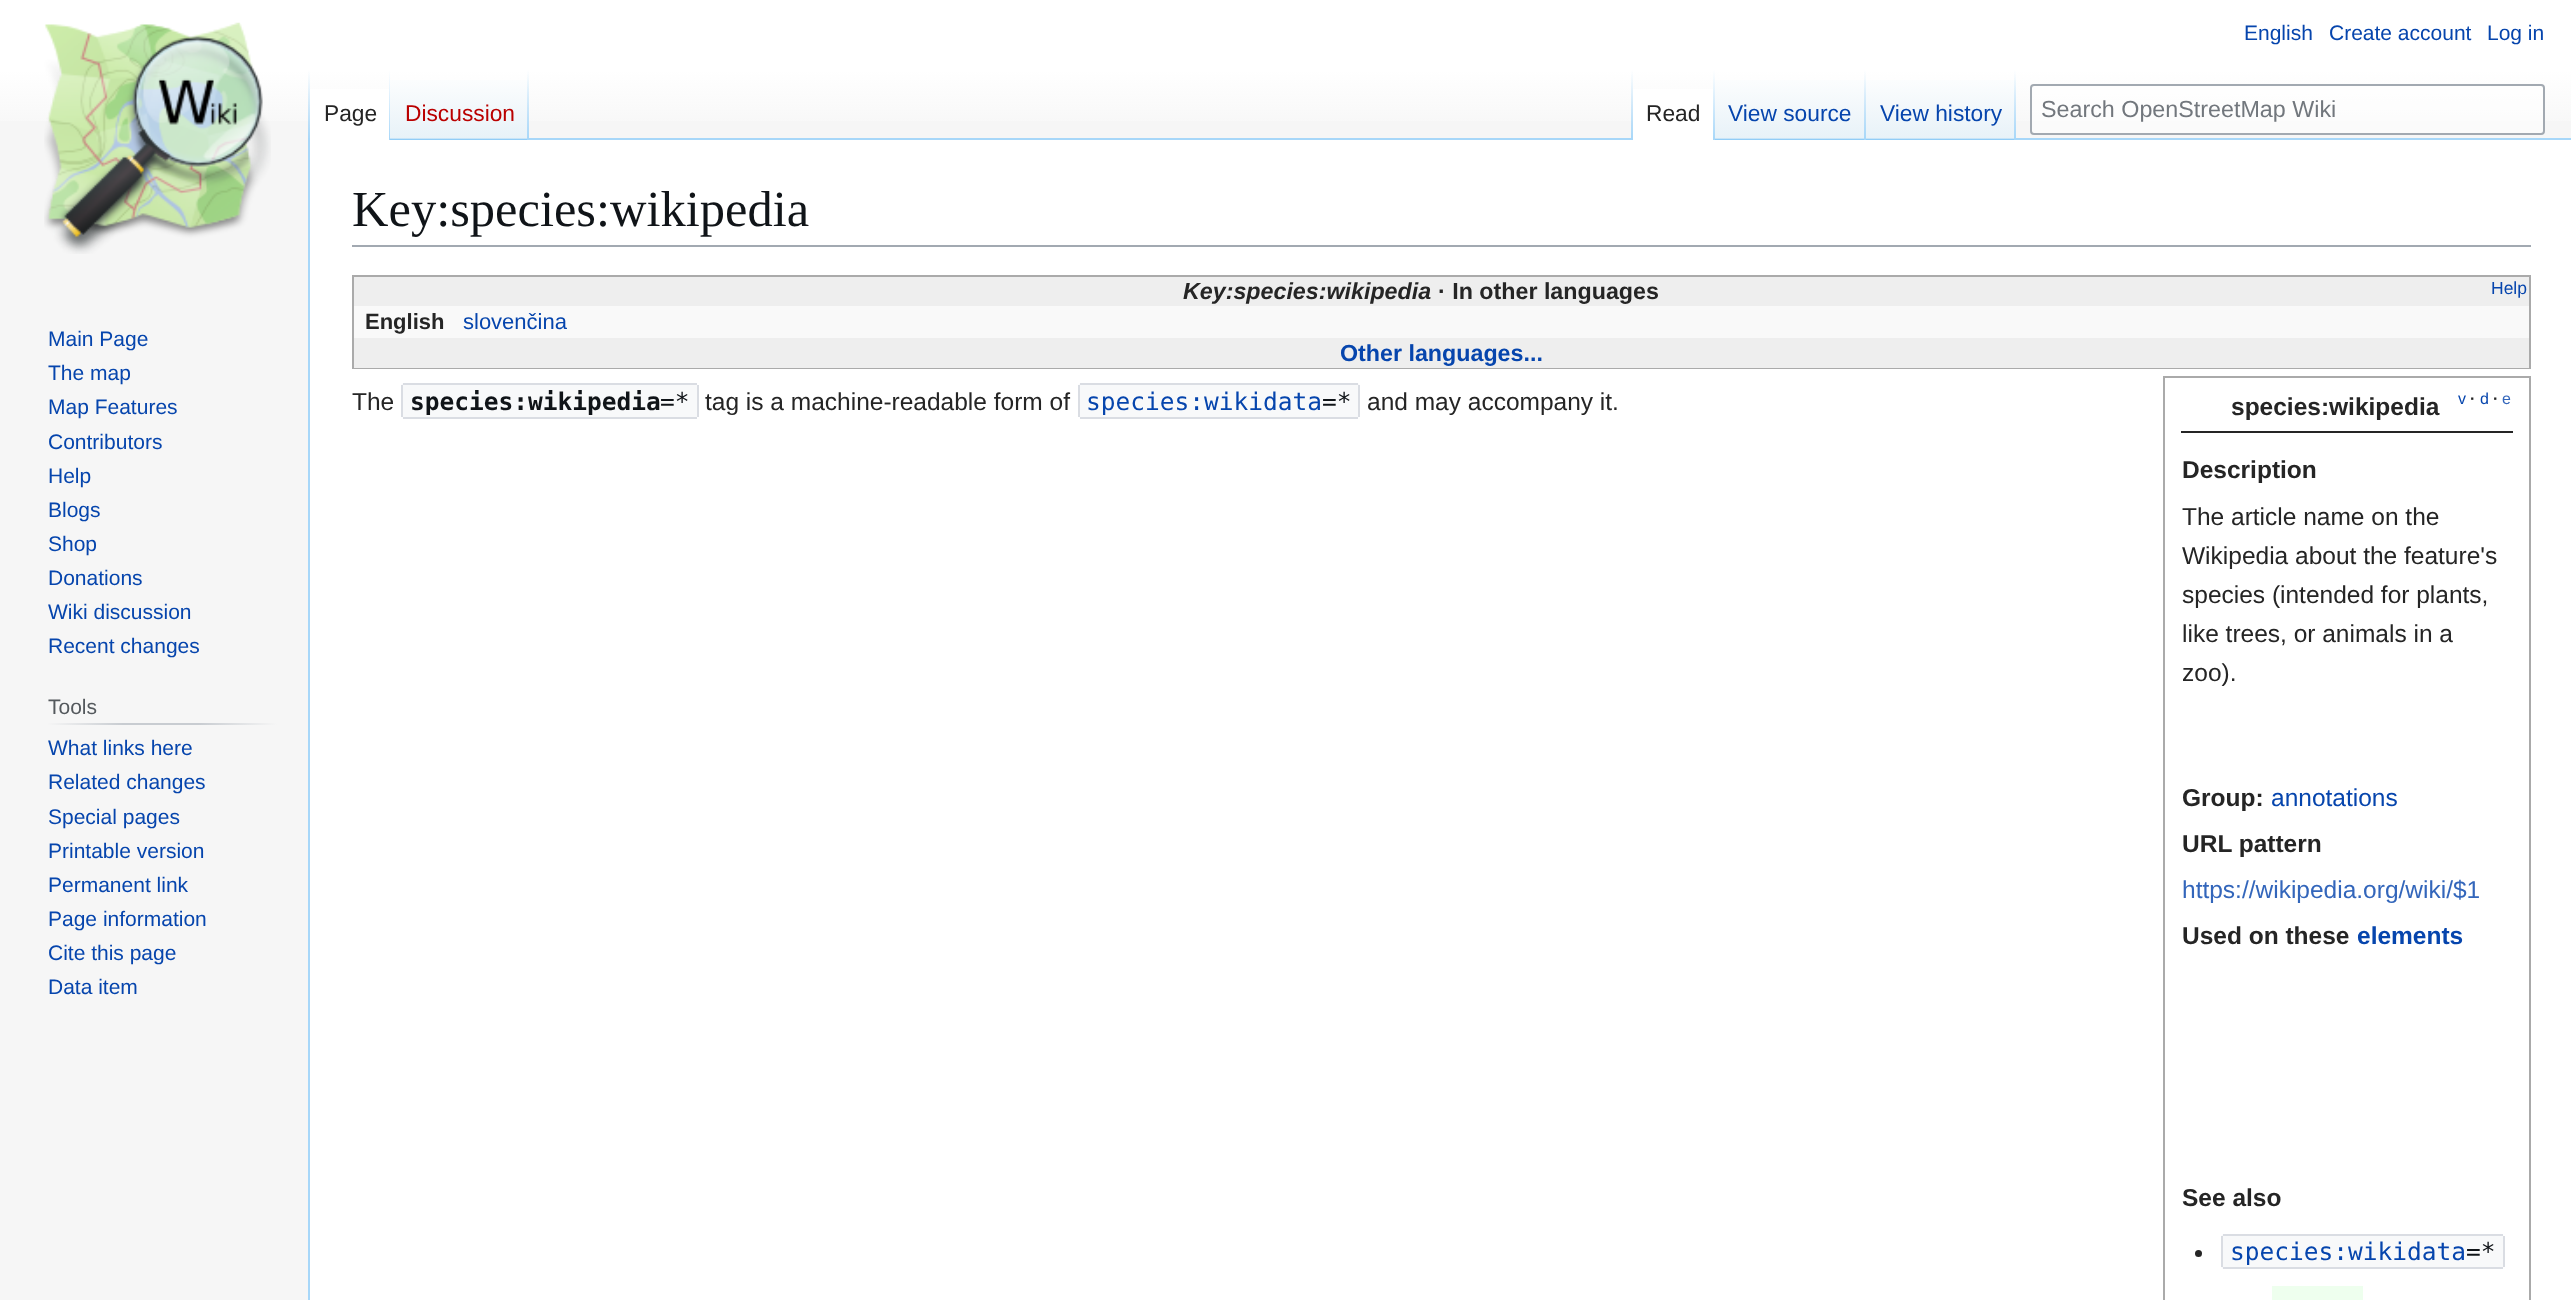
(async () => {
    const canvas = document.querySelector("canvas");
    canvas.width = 2571;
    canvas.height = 1300;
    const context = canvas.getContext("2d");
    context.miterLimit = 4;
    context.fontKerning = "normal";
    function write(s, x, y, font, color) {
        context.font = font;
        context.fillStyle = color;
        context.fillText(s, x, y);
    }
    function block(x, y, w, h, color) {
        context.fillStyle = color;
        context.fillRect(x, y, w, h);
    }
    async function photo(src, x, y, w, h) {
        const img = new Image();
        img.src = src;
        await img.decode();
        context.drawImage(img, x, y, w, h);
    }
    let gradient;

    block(0, 0, 2571, 1300, "rgb(246, 246, 246)");
    gradient = context.createLinearGradient(1286, 0, 1286, 140);
    gradient.addColorStop(0.5, "rgb(255, 255, 255)");
    gradient.addColorStop(1, "rgb(246, 246, 246)");
    context.fillStyle = gradient;
    context.fillRect(0, 0, 2571, 121);
    write("English", 2244, 40, "21px Liberation Sans", "rgb(6, 69, 173)");
    write("Create account", 2329, 40, "21px Liberation Sans", "rgb(6, 69, 173)");
    write("Log in", 2487, 40, "21px Liberation Sans", "rgb(6, 69, 173)");
    block(308, 138, 2, 1162, "rgb(167, 215, 249)");
    gradient = context.createLinearGradient(309, 70, 309, 140);
    gradient.addColorStop(0, "rgba(167, 215, 249, 0)");
    gradient.addColorStop(1, "rgb(167, 215, 249)");
    context.fillStyle = gradient;
    context.fillRect(308, 70, 2, 70);
    block(310, 89, 79, 51, "rgb(255, 255, 255)");
    gradient = context.createLinearGradient(389, 70, 389, 140);
    gradient.addColorStop(0, "rgb(255, 255, 255)");
    gradient.addColorStop(1, "rgb(167, 215, 249)");
    context.fillStyle = gradient;
    context.fillRect(389, 70, 1, 70);
    write("Page", 324, 121, "22.75px Liberation Sans", "rgb(37, 37, 37)");
    gradient = context.createLinearGradient(459, 140, 459, 70);
    gradient.addColorStop(0, "rgb(119, 193, 246)");
    gradient.addColorStop(0.03, "rgb(232, 242, 248)");
    gradient.addColorStop(1, "rgb(255, 255, 255)");
    context.fillStyle = gradient;
    context.fillRect(390, 80, 139, 60);
    gradient = context.createLinearGradient(528, 70, 528, 140);
    gradient.addColorStop(0, "rgba(167, 215, 249, 0)");
    gradient.addColorStop(1, "rgb(167, 215, 249)");
    context.fillStyle = gradient;
    context.fillRect(527, 70, 2, 70);
    write("Discussion", 405, 121, "22.75px Liberation Sans", "rgb(186, 0, 0)");
    block(529, 138, 2042, 2, "rgb(167, 215, 249)");
    gradient = context.createLinearGradient(1632, 70, 1632, 140);
    gradient.addColorStop(0, "rgba(167, 215, 249, 0)");
    gradient.addColorStop(1, "rgb(167, 215, 249)");
    context.fillStyle = gradient;
    context.fillRect(1631, 70, 2, 70);
    block(1633, 89, 80, 51, "rgb(255, 255, 255)");
    gradient = context.createLinearGradient(1714, 70, 1714, 140);
    gradient.addColorStop(0, "rgb(255, 255, 255)");
    gradient.addColorStop(1, "rgb(167, 215, 249)");
    context.fillStyle = gradient;
    context.fillRect(1713, 70, 2, 70);
    write("Read", 1646, 121, "22.75px Liberation Sans", "rgb(37, 37, 37)");
    gradient = context.createLinearGradient(1790, 140, 1790, 70);
    gradient.addColorStop(0, "rgb(119, 193, 246)");
    gradient.addColorStop(0.03, "rgb(232, 242, 248)");
    gradient.addColorStop(1, "rgb(255, 255, 255)");
    context.fillStyle = gradient;
    context.fillRect(1715, 80, 151, 60);
    gradient = context.createLinearGradient(1865, 70, 1865, 140);
    gradient.addColorStop(0, "rgba(167, 215, 249, 0)");
    gradient.addColorStop(1, "rgb(167, 215, 249)");
    context.fillStyle = gradient;
    context.fillRect(1864, 70, 2, 70);
    write("View source", 1728, 121, "22.75px Liberation Sans", "rgb(6, 69, 173)");
    gradient = context.createLinearGradient(1941, 140, 1941, 70);
    gradient.addColorStop(0, "rgb(119, 193, 246)");
    gradient.addColorStop(0.03, "rgb(232, 242, 248)");
    gradient.addColorStop(1, "rgb(255, 255, 255)");
    context.fillStyle = gradient;
    context.fillRect(1866, 80, 150, 60);
    gradient = context.createLinearGradient(2015, 70, 2015, 140);
    gradient.addColorStop(0, "rgba(167, 215, 249, 0)");
    gradient.addColorStop(1, "rgb(167, 215, 249)");
    context.fillStyle = gradient;
    context.fillRect(2014, 70, 2, 70);
    write("View history", 1880, 121, "22.75px Liberation Sans", "rgb(6, 69, 173)");
    context.fillStyle = "rgba(255, 255, 255, 0.5)";
    context.beginPath();
    context.roundRect(2031, 85, 513, 49, 3);
    context.fill();
    context.strokeStyle = "rgb(162, 169, 177)";
    context.lineWidth = 2;
    context.stroke();
    write("Search OpenStreetMap Wiki", 2041, 117, "23.3px Liberation Sans", "rgb(114, 119, 125)");
    await photo("media/1.png", 44, 22, 227, 232);
    write("Main Page", 48, 346, "21px Liberation Sans", "rgb(6, 69, 173)");
    write("The map", 48, 380, "21px Liberation Sans", "rgb(6, 69, 173)");
    write("Map Features", 48, 414, "21px Liberation Sans", "rgb(6, 69, 173)");
    write("Contributors", 48, 449, "21px Liberation Sans", "rgb(6, 69, 173)");
    write("Help", 48, 483, "21px Liberation Sans", "rgb(6, 69, 173)");
    write("Blogs", 48, 517, "21px Liberation Sans", "rgb(6, 69, 173)");
    write("Shop", 48, 551, "21px Liberation Sans", "rgb(6, 69, 173)");
    write("Donations", 48, 585, "21px Liberation Sans", "rgb(6, 69, 173)");
    write("Wiki discussion", 48, 619, "21px Liberation Sans", "rgb(6, 69, 173)");
    write("Recent changes", 48, 653, "21px Liberation Sans", "rgb(6, 69, 173)");
    gradient = context.createLinearGradient(47, 724, 277, 724);
    gradient.addColorStop(0, "rgb(246, 246, 246)");
    gradient.addColorStop(0.33, "rgb(200, 204, 209)");
    gradient.addColorStop(0.66, "rgb(200, 204, 209)");
    gradient.addColorStop(1, "rgb(246, 246, 246)");
    context.fillStyle = gradient;
    context.fillRect(47, 723, 230, 2);
    write("Tools", 48, 714, "21px Liberation Sans", "rgb(84, 89, 93)");
    write("What links here", 48, 755, "21px Liberation Sans", "rgb(6, 69, 173)");
    write("Related changes", 48, 789, "21px Liberation Sans", "rgb(6, 69, 173)");
    write("Special pages", 48, 824, "21px Liberation Sans", "rgb(6, 69, 173)");
    write("Printable version", 48, 858, "21px Liberation Sans", "rgb(6, 69, 173)");
    write("Permanent link", 48, 892, "21px Liberation Sans", "rgb(6, 69, 173)");
    write("Page information", 48, 926, "21px Liberation Sans", "rgb(6, 69, 173)");
    write("Cite this page", 48, 960, "21px Liberation Sans", "rgb(6, 69, 173)");
    write("Data item", 48, 994, "21px Liberation Sans", "rgb(6, 69, 173)");
    block(310, 140, 2261, 1160, "rgb(255, 255, 255)");
    block(352, 245, 2179, 2, "rgb(162, 169, 177)");
    write("Key:species:wikipedia", 352, 226, "50.5px Liberation Serif", "rgb(16, 20, 24)");
    context.strokeStyle = "rgb(170, 170, 170)";
    context.strokeRect(353, 276, 2177, 92);
    block(354, 277, 2175, 29, "rgb(238, 238, 238)");
    write("Key:species:wikipedia", 1183, 299, "italic bold 23.25px Liberation Sans", "rgb(37, 37, 37)");
    write("· In other languages", 1438, 299, "bold 23.25px Liberation Sans", "rgb(37, 37, 37)");
    write("Help", 2491, 294, "17.5px Liberation Sans", "rgb(6, 69, 173)");
    block(354, 306, 2175, 32, "rgb(249, 249, 249)");
    write("English", 365, 329, "bold 22px Liberation Sans", "rgb(37, 37, 37)");
    write("slovenčina", 463, 329, "22px Liberation Sans", "rgb(6, 69, 173)");
    block(354, 338, 2175, 30, "rgb(238, 238, 238)");
    write("Other languages...", 1340, 361, "bold 23.25px Liberation Sans", "rgb(6, 69, 173)");
    write("The", 352, 410, "24.5px Liberation Sans", "rgb(37, 37, 37)");
    context.fillStyle = "rgb(248, 249, 250)";
    context.beginPath();
    context.roundRect(401, 383, 259, 35, [4, 0, 0, 4]);
    context.fill();
    write("species:wikipedia", 410, 410, "bold 24.5px DejaVu Sans Mono", "rgb(16, 20, 24)");
    block(403, 417, 257, 2, "rgb(218, 221, 227)");
    block(401, 385, 2, 32, "rgb(218, 221, 227)");
    context.fillStyle = "rgb(248, 249, 250)";
    context.beginPath();
    context.roundRect(660, 383, 38, 35, [0, 4, 4, 0]);
    context.fill();
    block(660, 417, 37, 2, "rgb(218, 221, 227)");
    write("=*", 660, 410, "24.5px DejaVu Sans Mono", "rgb(16, 20, 24)");
    block(403, 383, 257, 2, "rgb(218, 221, 227)");
    block(660, 383, 37, 2, "rgb(218, 221, 227)");
    block(697, 385, 2, 32, "rgb(218, 221, 227)");
    write("tag is a machine-readable form of", 705, 410, "24.5px Liberation Sans", "rgb(37, 37, 37)");
    context.fillStyle = "rgb(248, 249, 250)";
    context.beginPath();
    context.roundRect(1078, 383, 243, 35, [4, 0, 0, 4]);
    context.fill();
    write("species:wikidata", 1086, 410, "24.5px DejaVu Sans Mono", "rgb(6, 69, 173)");
    block(1080, 417, 241, 2, "rgb(218, 221, 227)");
    block(1078, 385, 2, 32, "rgb(218, 221, 227)");
    context.fillStyle = "rgb(248, 249, 250)";
    context.beginPath();
    context.roundRect(1321, 383, 39, 35, [0, 4, 4, 0]);
    context.fill();
    block(1321, 417, 37, 2, "rgb(218, 221, 227)");
    write("=*", 1322, 410, "24.5px DejaVu Sans Mono", "rgb(16, 20, 24)");
    block(1080, 383, 241, 2, "rgb(218, 221, 227)");
    block(1321, 383, 37, 2, "rgb(218, 221, 227)");
    block(1358, 385, 2, 32, "rgb(218, 221, 227)");
    write("and may accompany it.", 1367, 410, "24.5px Liberation Sans", "rgb(37, 37, 37)");
    context.strokeRect(2164, 377, 366, 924);
    block(2181, 431, 332, 2, "rgb(37, 37, 37)");
    write("species:wikipedia", 2231, 415, "bold 24.5px Liberation Sans", "rgb(37, 37, 37)");
    write("v", 2458, 404, "16px Liberation Sans", "rgb(6, 69, 173)");
    write("·", 2470, 404, "bold 16px Liberation Sans", "rgb(37, 37, 37)");
    write("d", 2480, 404, "16px Liberation Sans", "rgb(6, 69, 173)");
    write("·", 2493, 404, "bold 16px Liberation Sans", "rgb(37, 37, 37)");
    write("e", 2502, 404, "16px Liberation Sans", "rgb(51, 102, 187)");
    write("Description", 2182, 478, "bold 24.5px Liberation Sans", "rgb(37, 37, 37)");
    write("The article name on the", 2182, 525, "24.5px Liberation Sans", "rgb(37, 37, 37)");
    write("Wikipedia about the feature's", 2182, 564, "24.5px Liberation Sans", "rgb(37, 37, 37)");
    write("species (intended for plants,", 2182, 603, "24.5px Liberation Sans", "rgb(37, 37, 37)");
    write("like trees, or animals in a", 2182, 642, "24.5px Liberation Sans", "rgb(37, 37, 37)");
    write("zoo).", 2182, 681, "24.5px Liberation Sans", "rgb(37, 37, 37)");
    write("Group:", 2182, 806, "bold 24.5px Liberation Sans", "rgb(37, 37, 37)");
    write("annotations", 2271, 806, "24.5px Liberation Sans", "rgb(6, 69, 173)");
    write("URL pattern", 2182, 852, "bold 24.5px Liberation Sans", "rgb(37, 37, 37)");
    write("https://wikipedia.org/wiki/$1", 2182, 898, "24.5px Liberation Sans", "rgb(51, 102, 187)");
    write("Used on these", 2182, 944, "bold 24.5px Liberation Sans", "rgb(37, 37, 37)");
    write("elements", 2357, 944, "bold 24.5px Liberation Sans", "rgb(6, 69, 173)");
    write("See also", 2182, 1206, "bold 24.5px Liberation Sans", "rgb(37, 37, 37)");
    context.beginPath();
    context.arc(2198.5, 1253.5, 3.5, 0, Math.PI * 2);
    context.fill();
    context.fillStyle = "rgb(248, 249, 250)";
    context.beginPath();
    context.roundRect(2221, 1234, 245, 35, [4, 0, 0, 4]);
    context.fill();
    write("species:wikidata", 2230, 1260, "24.5px DejaVu Sans Mono", "rgb(6, 69, 173)");
    block(2223, 1267, 243, 2, "rgb(218, 221, 227)");
    block(2221, 1236, 2, 31, "rgb(218, 221, 227)");
    context.fillStyle = "rgb(248, 249, 250)";
    context.beginPath();
    context.roundRect(2466, 1234, 38, 35, [0, 4, 4, 0]);
    context.fill();
    block(2466, 1267, 37, 2, "rgb(218, 221, 227)");
    write("=*", 2466, 1260, "24.5px DejaVu Sans Mono", "rgb(16, 20, 24)");
    block(2223, 1234, 243, 2, "rgb(218, 221, 227)");
    block(2466, 1234, 37, 2, "rgb(218, 221, 227)");
    block(2503, 1236, 2, 31, "rgb(218, 221, 227)");
    block(2272, 1286, 91, 14, "rgb(238, 255, 238)");
})();
